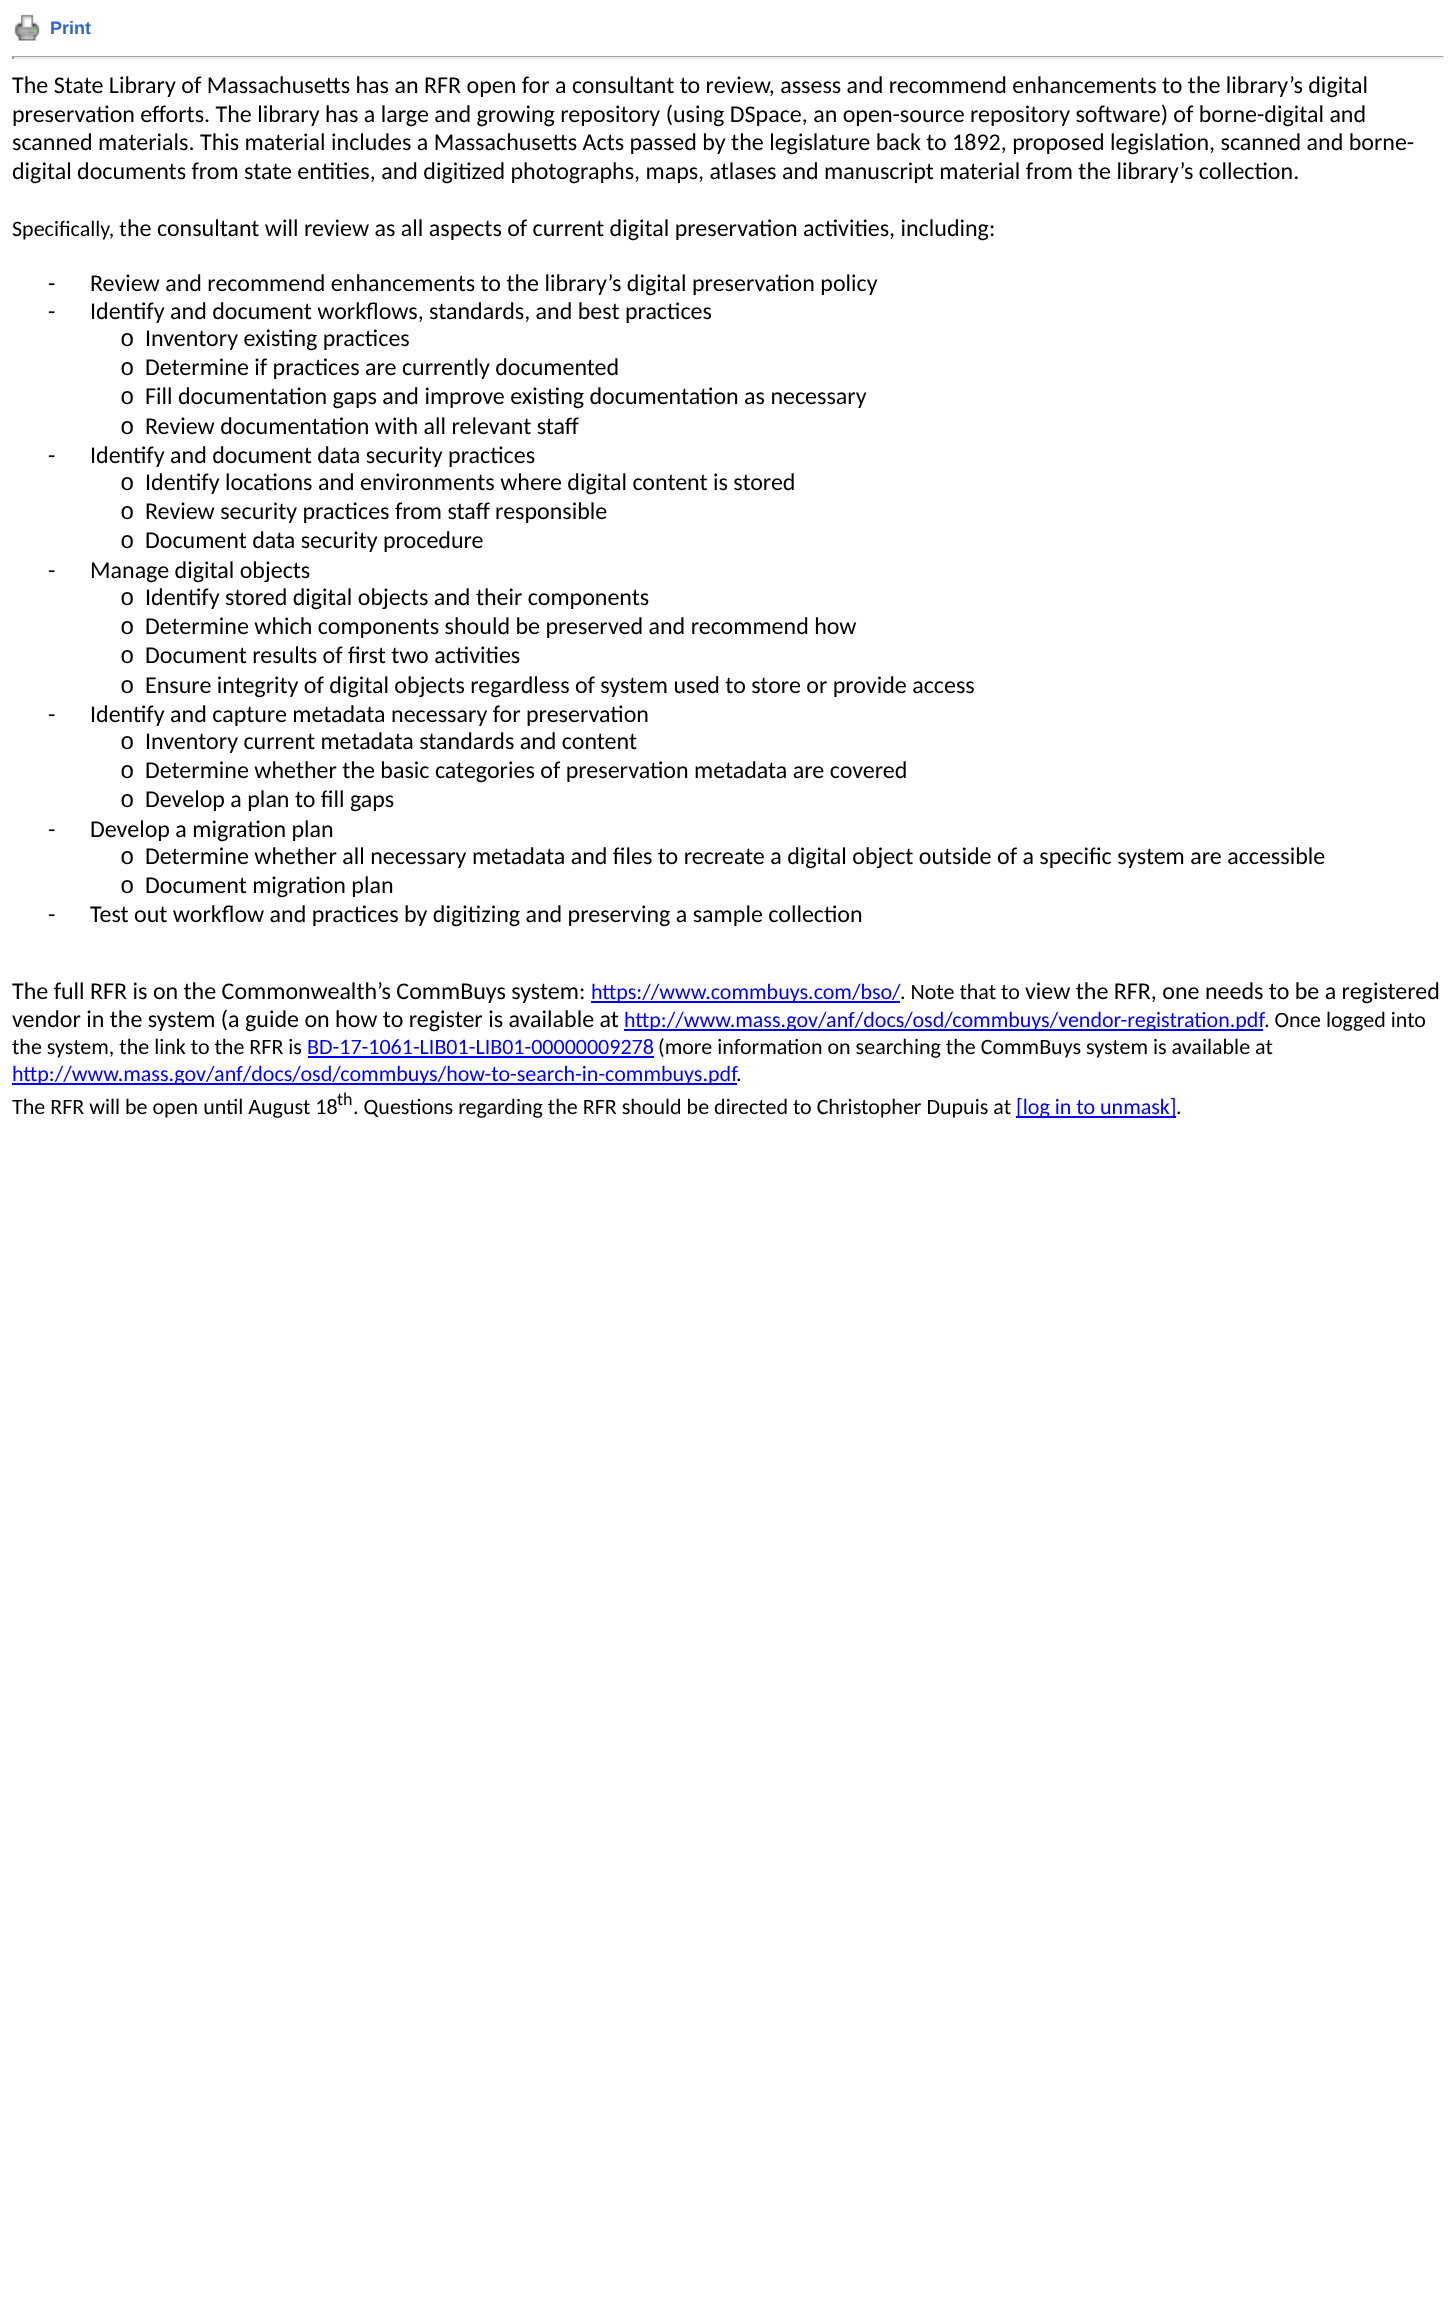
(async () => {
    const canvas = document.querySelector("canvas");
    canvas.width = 1456;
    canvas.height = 2316;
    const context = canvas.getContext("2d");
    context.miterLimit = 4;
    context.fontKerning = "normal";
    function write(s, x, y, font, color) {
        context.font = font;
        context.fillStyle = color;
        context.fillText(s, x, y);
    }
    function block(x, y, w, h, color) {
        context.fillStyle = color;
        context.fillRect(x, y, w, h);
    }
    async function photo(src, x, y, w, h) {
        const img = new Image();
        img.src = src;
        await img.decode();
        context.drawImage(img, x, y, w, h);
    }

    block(0, 0, 1456, 2316, "rgb(255, 255, 255)");
    await photo("media/1.png", 14, 14, 26, 27);
    write("Print", 50, 34, "bold 18px Liberation Sans", "rgb(51, 102, 204)");
    block(12, 56, 1433, 1, "rgb(159, 159, 159)");
    block(1443, 56, 2, 3, "rgb(238, 238, 238)");
    block(12, 57, 1433, 2, "rgb(238, 238, 238)");
    block(12, 56, 2, 3, "rgb(159, 159, 159)");
    write("The State Library of Massachusetts has an RFR open for a consultant to review, assess and recommend enhancements to the library’s digital", 12, 93, "24px Carlito", "rgb(0, 0, 0)");
    write("preservation efforts. The library has a large and growing repository (using DSpace, an open-source repository software) of borne-digital and", 12, 122, "24px Carlito", "rgb(0, 0, 0)");
    write("scanned materials. This material includes a Massachusetts Acts passed by the legislature back to 1892, proposed legislation, scanned and borne-", 12, 150, "24px Carlito", "rgb(0, 0, 0)");
    write("digital documents from state entities, and digitized photographs, maps, atlases and manuscript material from the library’s collection.", 12, 179, "24px Carlito", "rgb(0, 0, 0)");
    write("Specifically, t", 12, 236, "22px Carlito", "rgb(0, 0, 0)");
    write("he consultant will review as all aspects of current digital preservation activities, including:", 127, 236, "24px Carlito", "rgb(0, 0, 0)");
    write("-", 48, 291, "24px Carlito", "rgb(0, 0, 0)");
    write("Review and recommend enhancements to the library’s digital preservation policy", 90, 291, "24px Carlito", "rgb(0, 0, 0)");
    write("-", 48, 319, "24px Carlito", "rgb(0, 0, 0)");
    write("Identify and document workflows, standards, and best practices", 90, 319, "24px Carlito", "rgb(0, 0, 0)");
    write("o", 120, 346, "24px Liberation Mono", "rgb(0, 0, 0)");
    write("Inventory existing practices", 145, 346, "24px Carlito", "rgb(0, 0, 0)");
    write("o", 120, 375, "24px Liberation Mono", "rgb(0, 0, 0)");
    write("Determine if practices are currently documented", 145, 375, "24px Carlito", "rgb(0, 0, 0)");
    write("o", 120, 404, "24px Liberation Mono", "rgb(0, 0, 0)");
    write("Fill documentation gaps and improve existing documentation as necessary", 145, 404, "24px Carlito", "rgb(0, 0, 0)");
    write("o", 120, 434, "24px Liberation Mono", "rgb(0, 0, 0)");
    write("Review documentation with all relevant staff", 145, 434, "24px Carlito", "rgb(0, 0, 0)");
    write("-", 48, 463, "24px Carlito", "rgb(0, 0, 0)");
    write("Identify and document data security practices", 90, 463, "24px Carlito", "rgb(0, 0, 0)");
    write("o", 120, 490, "24px Liberation Mono", "rgb(0, 0, 0)");
    write("Identify locations and environments where digital content is stored", 145, 490, "24px Carlito", "rgb(0, 0, 0)");
    write("o", 120, 519, "24px Liberation Mono", "rgb(0, 0, 0)");
    write("Review security practices from staff responsible", 145, 519, "24px Carlito", "rgb(0, 0, 0)");
    write("o", 120, 548, "24px Liberation Mono", "rgb(0, 0, 0)");
    write("Document data security procedure", 145, 548, "24px Carlito", "rgb(0, 0, 0)");
    write("-", 48, 578, "24px Carlito", "rgb(0, 0, 0)");
    write("Manage digital objects", 90, 578, "24px Carlito", "rgb(0, 0, 0)");
    write("o", 120, 605, "24px Liberation Mono", "rgb(0, 0, 0)");
    write("Identify stored digital objects and their components", 145, 605, "24px Carlito", "rgb(0, 0, 0)");
    write("o", 120, 634, "24px Liberation Mono", "rgb(0, 0, 0)");
    write("Determine which components should be preserved and recommend how", 145, 634, "24px Carlito", "rgb(0, 0, 0)");
    write("o", 120, 663, "24px Liberation Mono", "rgb(0, 0, 0)");
    write("Document results of first two activities", 145, 663, "24px Carlito", "rgb(0, 0, 0)");
    write("o", 120, 693, "24px Liberation Mono", "rgb(0, 0, 0)");
    write("Ensure integrity of digital objects regardless of system used to store or provide access", 145, 693, "24px Carlito", "rgb(0, 0, 0)");
    write("-", 48, 722, "24px Carlito", "rgb(0, 0, 0)");
    write("Identify and capture metadata necessary for preservation", 90, 722, "24px Carlito", "rgb(0, 0, 0)");
    write("o", 120, 749, "24px Liberation Mono", "rgb(0, 0, 0)");
    write("Inventory current metadata standards and content", 145, 749, "24px Carlito", "rgb(0, 0, 0)");
    write("o", 120, 778, "24px Liberation Mono", "rgb(0, 0, 0)");
    write("Determine whether the basic categories of preservation metadata are covered", 145, 778, "24px Carlito", "rgb(0, 0, 0)");
    write("o", 120, 807, "24px Liberation Mono", "rgb(0, 0, 0)");
    write("Develop a plan to fill gaps", 145, 807, "24px Carlito", "rgb(0, 0, 0)");
    write("-", 48, 837, "24px Carlito", "rgb(0, 0, 0)");
    write("Develop a migration plan", 90, 837, "24px Carlito", "rgb(0, 0, 0)");
    write("o", 120, 864, "24px Liberation Mono", "rgb(0, 0, 0)");
    write("Determine whether all necessary metadata and files to recreate a digital object outside of a specific system are accessible", 145, 864, "24px Carlito", "rgb(0, 0, 0)");
    write("o", 120, 893, "24px Liberation Mono", "rgb(0, 0, 0)");
    write("Document migration plan", 145, 893, "24px Carlito", "rgb(0, 0, 0)");
    write("-", 48, 922, "24px Carlito", "rgb(0, 0, 0)");
    write("Test out workflow and practices by digitizing and preserving a sample collection", 90, 922, "24px Carlito", "rgb(0, 0, 0)");
    write("The full RFR is on the Commonwealth’s CommBuys system:", 12, 999, "24px Carlito", "rgb(0, 0, 0)");
    block(591, 1001, 309, 2, "rgb(0, 0, 255)");
    write("https://www.commbuys.com/bso/", 591, 999, "22px Carlito", "rgb(0, 0, 255)");
    write(". Note that to", 900, 999, "22px Carlito", "rgb(0, 0, 0)");
    write("view the RFR, one needs to be a registered", 1025, 999, "24px Carlito", "rgb(0, 0, 0)");
    write("vendor in the system (a guide on how to register is available at", 12, 1027, "24px Carlito", "rgb(0, 0, 0)");
    block(624, 1029, 639, 2, "rgb(0, 0, 255)");
    write("http://www.mass.gov/anf/docs/osd/commbuys/vendor-registration.pdf", 624, 1027, "22px Carlito", "rgb(0, 0, 255)");
    write(". Once logged into", 1264, 1027, "22px Carlito", "rgb(0, 0, 0)");
    write("the system, the link to the RFR is", 12, 1054, "22px Carlito", "rgb(0, 0, 0)");
    write("BD-17-1061-LIB01-LIB01-00000009278", 307, 1054, "22px Carlito", "rgb(0, 0, 255)");
    block(308, 1056, 346, 2, "rgb(0, 0, 255)");
    write("(more information on searching the CommBuys system is available at", 658, 1054, "22px Carlito", "rgb(0, 0, 0)");
    block(12, 1083, 725, 2, "rgb(0, 0, 255)");
    write("http://www.mass.gov/anf/docs/osd/commbuys/how-to-search-in-commbuys.pdf", 12, 1081, "22px Carlito", "rgb(0, 0, 255)");
    write(".", 736, 1081, "22px Carlito", "rgb(0, 0, 0)");
    write("The RFR will be open until August 18", 12, 1114, "22px Carlito", "rgb(0, 0, 0)");
    write("th", 337, 1105, "18px Carlito", "rgb(0, 0, 0)");
    write(". Questions regarding the RFR should be directed to Christopher Dupuis at", 353, 1114, "22px Carlito", "rgb(0, 0, 0)");
    block(1016, 1116, 160, 2, "rgb(0, 0, 255)");
    write("[log in to unmask]", 1016, 1114, "22px Carlito", "rgb(0, 0, 255)");
    write(".", 1176, 1114, "22px Carlito", "rgb(0, 0, 0)");
})();
